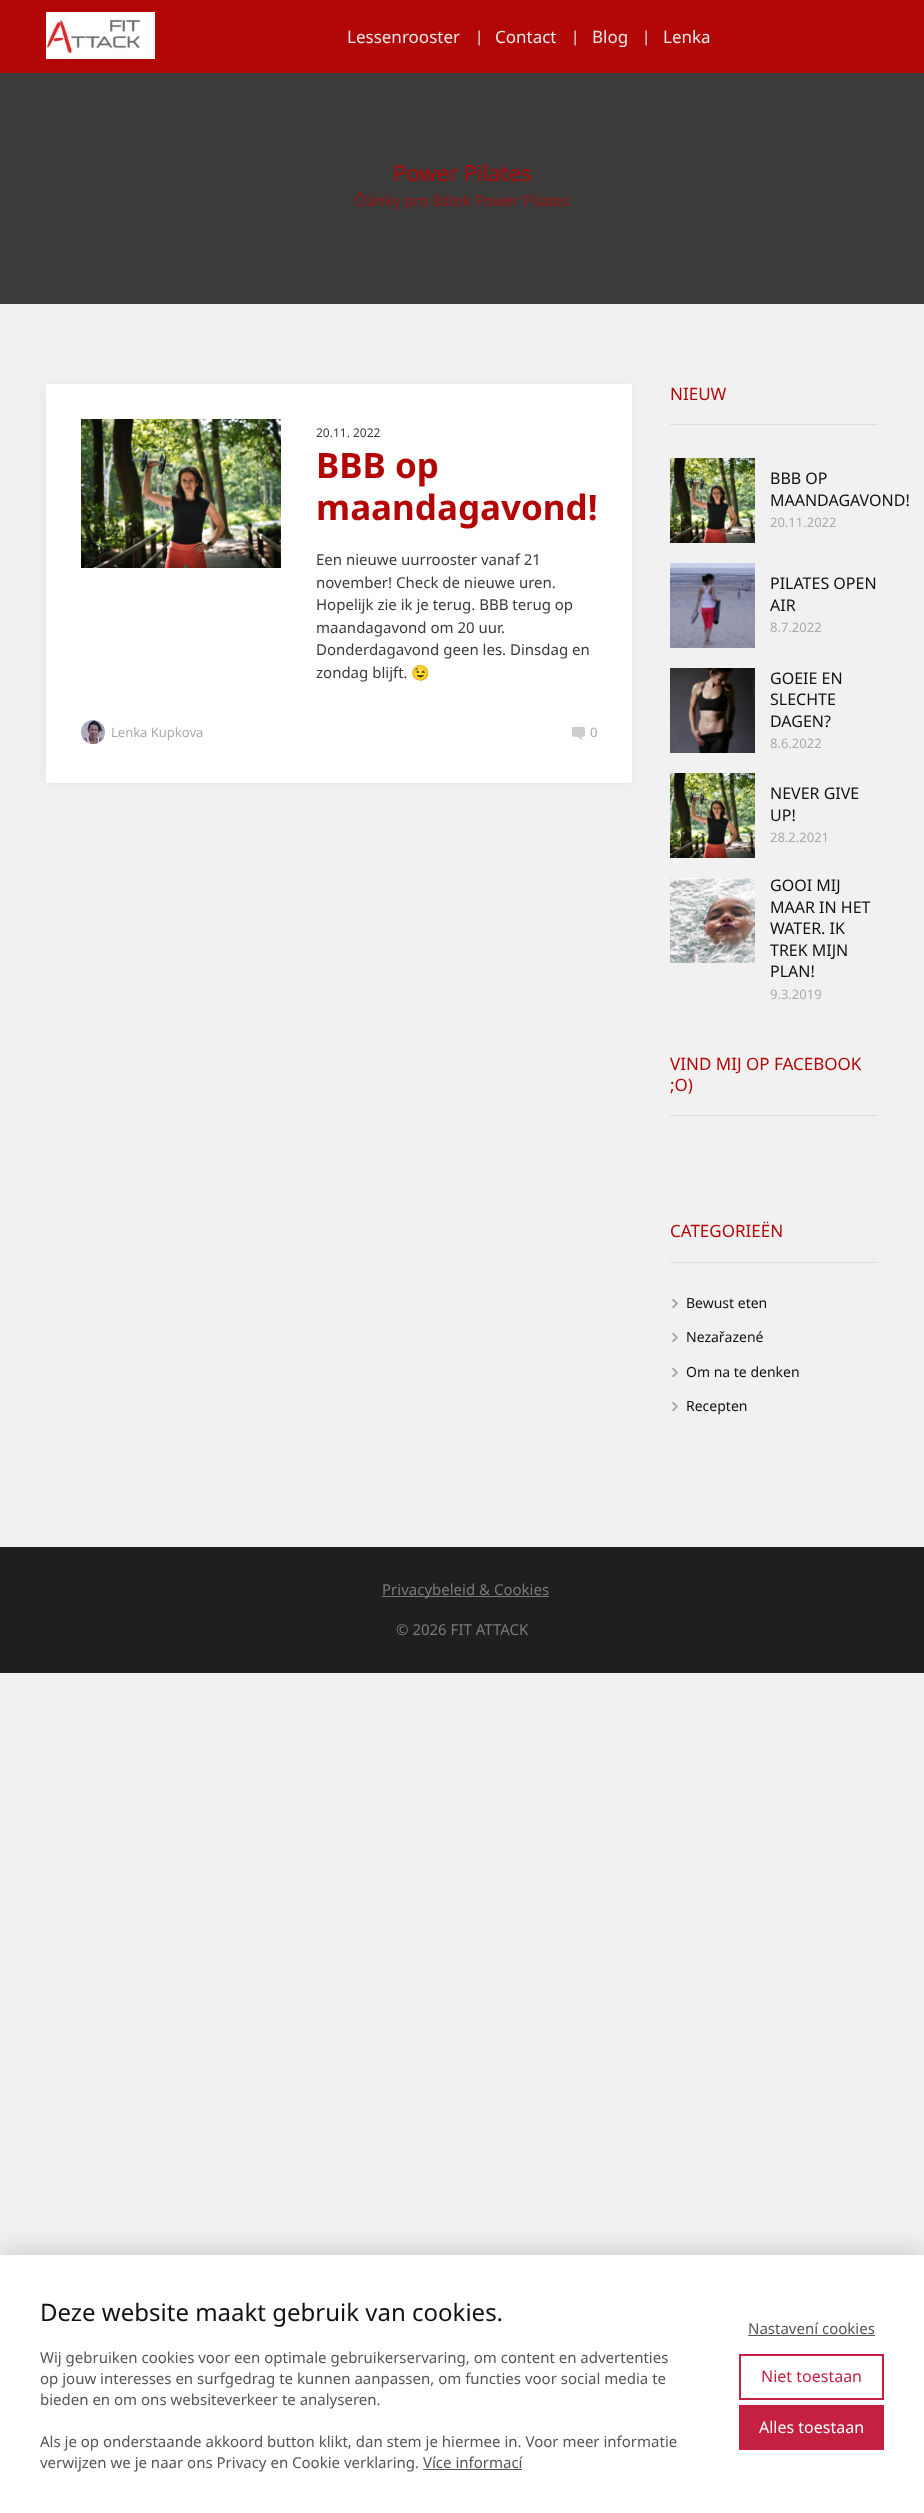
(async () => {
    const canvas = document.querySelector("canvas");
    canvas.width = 924;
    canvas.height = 2513;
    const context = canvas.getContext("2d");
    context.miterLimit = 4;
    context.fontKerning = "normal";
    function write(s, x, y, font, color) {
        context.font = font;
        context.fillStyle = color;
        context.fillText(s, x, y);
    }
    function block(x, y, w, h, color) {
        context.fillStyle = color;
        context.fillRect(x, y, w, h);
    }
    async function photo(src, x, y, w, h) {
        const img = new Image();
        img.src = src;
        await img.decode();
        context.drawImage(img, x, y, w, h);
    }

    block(0, 0, 924, 2513, "rgb(241, 241, 241)");
    block(0, 0, 924, 73, "rgb(179, 7, 7)");
    await photo("media/1.png", 46, 12, 109, 47);
    write("Lessenrooster", 347, 43, "17px Noto Sans", "rgb(232, 232, 232)");
    write("|", 475, 42, "15px Noto Sans", "rgb(232, 232, 232)");
    write("Contact", 495, 43, "17px Noto Sans", "rgb(232, 232, 232)");
    write("|", 571, 42, "15px Noto Sans", "rgb(232, 232, 232)");
    write("Blog", 592, 43, "17px Noto Sans", "rgb(232, 232, 232)");
    write("|", 642, 42, "15px Noto Sans", "rgb(232, 232, 232)");
    write("Lenka", 663, 43, "17px Noto Sans", "rgb(232, 232, 232)");
    block(0, 73, 924, 231, "rgb(59, 59, 59)");
    write("Power Pilates", 393, 181, "22px Noto Sans", "rgb(179, 7, 7)");
    write("Články pro štítek Power Pilates", 354, 206, "15px Noto Sans", "rgb(155, 17, 17)");
    context.fillStyle = "rgba(0, 0, 0, 0.05)";
    context.filter = "blur(7.5px)";
    context.beginPath();
    context.rect(46, 384, 586, 399);
    context.fill();
    context.filter = "none";
    block(46, 384, 586, 399, "rgb(255, 255, 255)");
    await photo("media/2.png", 81, 419, 200, 149);
    write("20.11. 2022", 316, 437, "12px Noto Sans", "rgb(59, 59, 59)");
    write("BBB op", 316, 478, "bold 35px Noto Sans", "rgb(179, 7, 7)");
    write("maandagavond!", 316, 520, "bold 35px Noto Sans", "rgb(179, 7, 7)");
    write("Een nieuwe uurrooster vanaf 21", 316, 565, "15px Noto Sans", "rgb(59, 59, 59)");
    write("november! Check de nieuwe uren.", 316, 588, "15px Noto Sans", "rgb(59, 59, 59)");
    write("Hopelijk zie ik je terug. BBB terug op", 316, 610, "15px Noto Sans", "rgb(59, 59, 59)");
    write("maandagavond om 20 uur.", 316, 633, "15px Noto Sans", "rgb(59, 59, 59)");
    write("Donderdagavond geen les. Dinsdag en", 316, 655, "15px Noto Sans", "rgb(59, 59, 59)");
    write("zondag blijft.", 316, 678, "15px Noto Sans", "rgb(59, 59, 59)");
    write("😉", 411, 678, "15px Noto Color Emoji", "rgb(59, 59, 59)");
    await photo("media/3.png", 81, 720, 24, 24);
    write("Lenka Kupkova", 111, 737, "13px Noto Sans", "rgb(170, 170, 170)");
    await photo("media/4.png", 572, 727, 13, 13);
    write("0", 590, 737, "13px Noto Sans", "rgb(170, 170, 170)");
    block(670, 424, 208, 1, "rgb(222, 222, 222)");
    write("NIEUW", 670, 400, "17px Noto Sans", "rgb(179, 7, 7)");
    await photo("media/5.png", 670, 458, 85, 85);
    write("BBB OP", 770, 484, "16px Noto Sans", "rgb(17, 17, 17)");
    write("MAANDAGAVOND!", 770, 506, "16px Noto Sans", "rgb(17, 17, 17)");
    write("20.11.2022", 770, 527, "13px Noto Sans", "rgb(170, 170, 170)");
    await photo("media/6.png", 670, 563, 85, 85);
    write("PILATES OPEN", 770, 589, "16px Noto Sans", "rgb(17, 17, 17)");
    write("AIR", 770, 611, "16px Noto Sans", "rgb(17, 17, 17)");
    write("8.7.2022", 770, 632, "13px Noto Sans", "rgb(170, 170, 170)");
    await photo("media/7.png", 670, 668, 85, 85);
    write("GOEIE EN", 770, 684, "16px Noto Sans", "rgb(17, 17, 17)");
    write("SLECHTE", 770, 705, "16px Noto Sans", "rgb(17, 17, 17)");
    write("DAGEN?", 770, 727, "16px Noto Sans", "rgb(17, 17, 17)");
    write("8.6.2022", 770, 748, "13px Noto Sans", "rgb(170, 170, 170)");
    await photo("media/8.png", 670, 773, 85, 85);
    write("NEVER GIVE", 770, 799, "16px Noto Sans", "rgb(17, 17, 17)");
    write("UP!", 770, 821, "16px Noto Sans", "rgb(17, 17, 17)");
    write("28.2.2021", 770, 842, "13px Noto Sans", "rgb(170, 170, 170)");
    await photo("media/9.png", 670, 878, 85, 85);
    write("GOOI MIJ", 770, 891, "16px Noto Sans", "rgb(17, 17, 17)");
    write("MAAR IN HET", 770, 913, "16px Noto Sans", "rgb(17, 17, 17)");
    write("WATER. IK", 770, 934, "16px Noto Sans", "rgb(17, 17, 17)");
    write("TREK MIJN", 770, 956, "16px Noto Sans", "rgb(17, 17, 17)");
    write("PLAN!", 770, 977, "16px Noto Sans", "rgb(17, 17, 17)");
    write("9.3.2019", 770, 999, "13px Noto Sans", "rgb(170, 170, 170)");
    block(670, 1115, 208, 1, "rgb(222, 222, 222)");
    write("VIND MIJ OP FACEBOOK", 670, 1070, "17px Noto Sans", "rgb(179, 7, 7)");
    write(";O)", 670, 1091, "17px Noto Sans", "rgb(179, 7, 7)");
    block(670, 1262, 208, 1, "rgb(222, 222, 222)");
    write("CATEGORIEËN", 670, 1237, "17px Noto Sans", "rgb(179, 7, 7)");
    await photo("media/10.png", 672, 1299, 6, 9);
    write("Bewust eten", 686, 1308, "14px Noto Sans", "rgb(17, 17, 17)");
    await photo("media/10.png", 672, 1333, 6, 9);
    write("Nezařazené", 686, 1342, "14px Noto Sans", "rgb(17, 17, 17)");
    await photo("media/10.png", 672, 1368, 6, 9);
    write("Om na te denken", 686, 1377, "14px Noto Sans", "rgb(17, 17, 17)");
    await photo("media/10.png", 672, 1402, 6, 9);
    write("Recepten", 686, 1411, "14px Noto Sans", "rgb(17, 17, 17)");
    block(0, 1547, 924, 126, "rgb(31, 31, 31)");
    block(382, 1596, 167, 1, "rgb(122, 122, 122)");
    write("Privacybeleid & Cookies", 382, 1595, "15px Noto Sans", "rgb(122, 122, 122)");
    write("© 2026 FIT ATTACK", 396, 1635, "15px Noto Sans", "rgb(122, 122, 122)");
    context.fillStyle = "rgba(0, 0, 0, 0.2)";
    context.filter = "blur(15px)";
    context.beginPath();
    context.rect(0, 2255, 924, 258);
    context.fill();
    context.filter = "none";
    block(0, 2255, 924, 258, "rgb(255, 255, 255)");
    write("Deze website maakt gebruik van cookies.", 40, 2321, "24px Noto Sans", "rgb(17, 17, 17)");
    write("Wij gebruiken cookies voor een optimale gebruikerservaring, om content en advertenties", 40, 2363, "15px Noto Sans", "rgb(85, 85, 85)");
    write("op jouw interesses en surfgedrag te kunnen aanpassen, om functies voor social media te", 40, 2384, "15px Noto Sans", "rgb(85, 85, 85)");
    write("bieden en om ons websiteverkeer te analyseren.", 40, 2405, "15px Noto Sans", "rgb(85, 85, 85)");
    write("Als je op onderstaande akkoord button klikt, dan stem je hiermee in. Voor meer informatie", 40, 2447, "15px Noto Sans", "rgb(85, 85, 85)");
    write("verwijzen we je naar ons Privacy en Cookie verklaring. Více informací", 40, 2468, "15px Noto Sans", "rgb(85, 85, 85)");
    block(423, 2469, 99, 1, "rgb(85, 85, 85)");
    write("Nastavení cookies", 748, 2334, "15px Noto Sans", "rgb(85, 85, 85)");
    block(748, 2335, 127, 1, "rgb(85, 85, 85)");
    context.strokeStyle = "rgb(196, 32, 64)";
    context.lineWidth = 2;
    context.strokeRect(740, 2355, 143, 44);
    write("Niet toestaan", 761, 2382, "16px Noto Sans", "rgb(196, 32, 64)");
    block(739, 2405, 145, 45, "rgb(196, 32, 64)");
    write("Alles toestaan", 759, 2433, "16px Noto Sans", "rgb(255, 255, 255)");
})();
